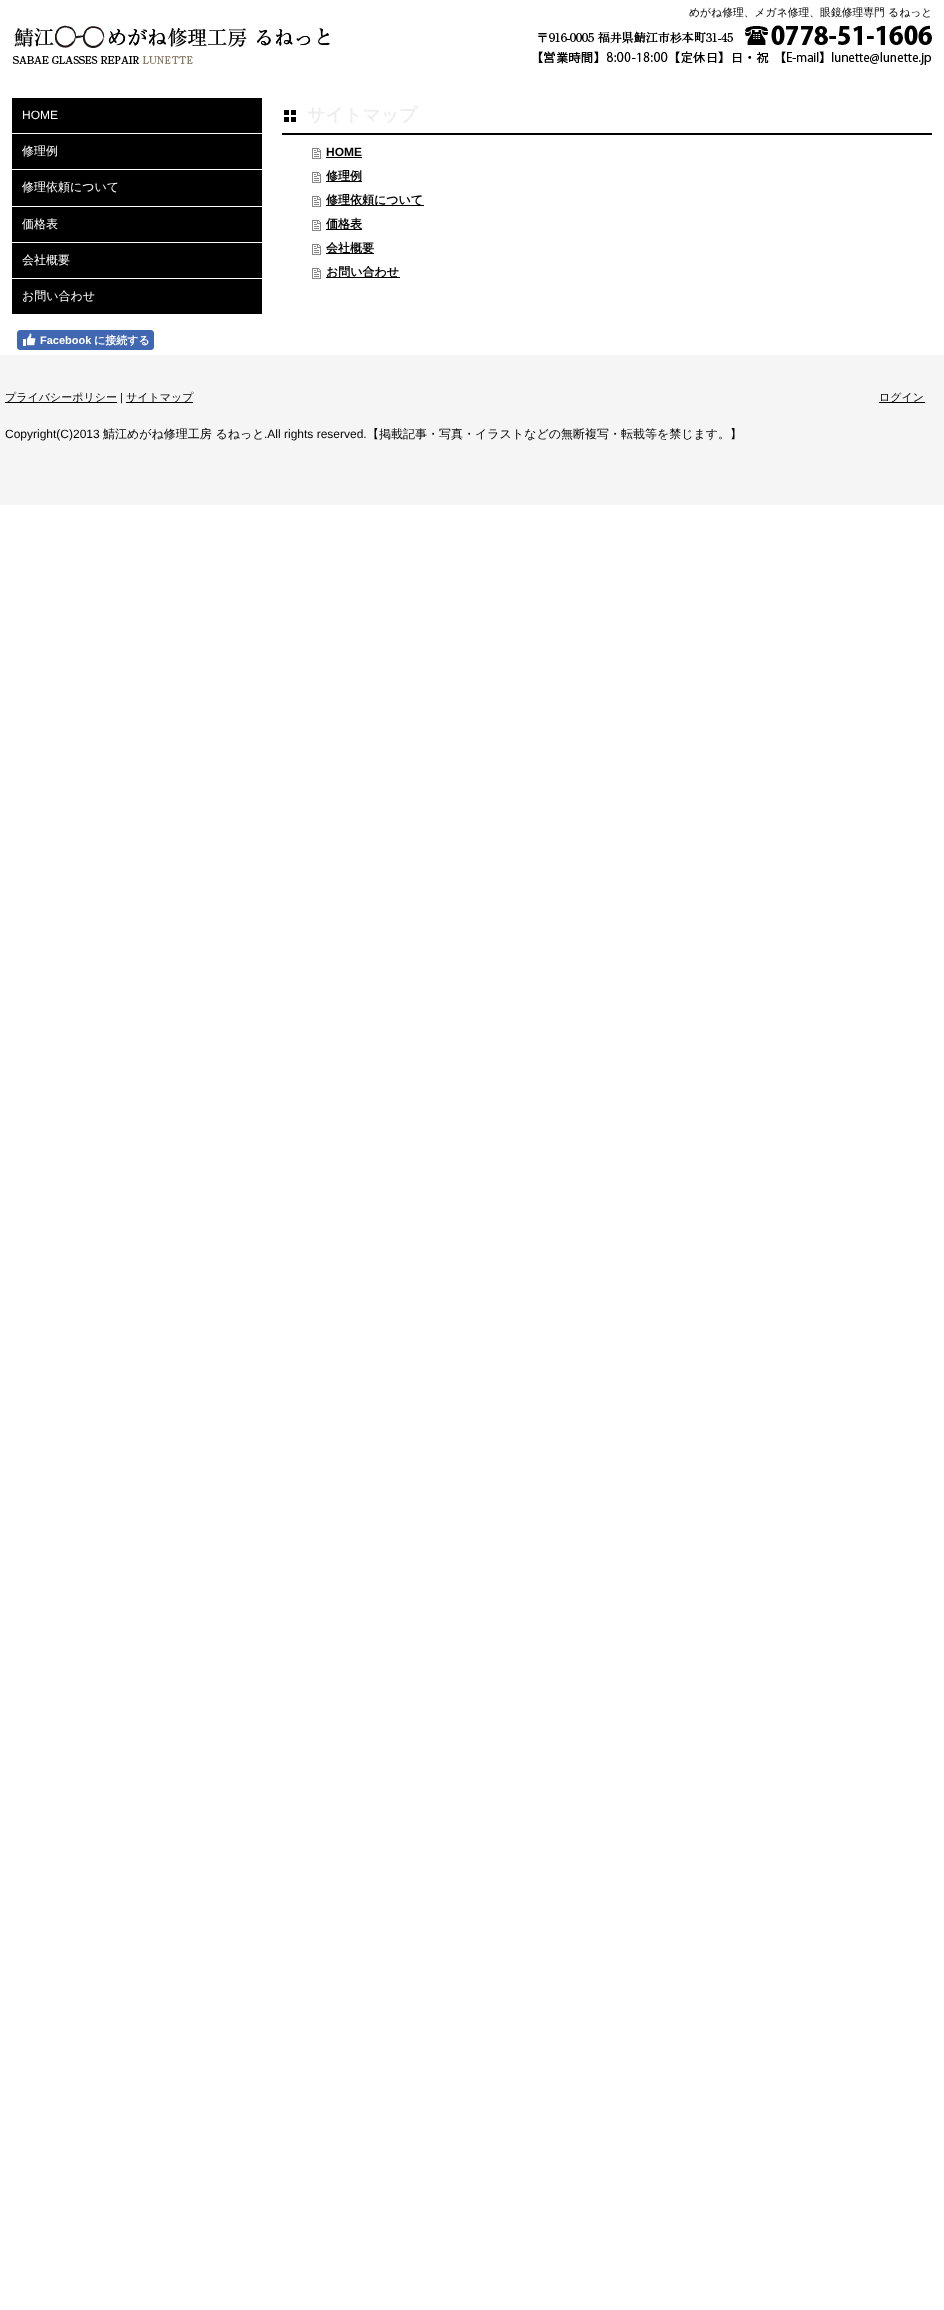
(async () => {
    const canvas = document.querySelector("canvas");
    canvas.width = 944;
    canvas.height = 2310;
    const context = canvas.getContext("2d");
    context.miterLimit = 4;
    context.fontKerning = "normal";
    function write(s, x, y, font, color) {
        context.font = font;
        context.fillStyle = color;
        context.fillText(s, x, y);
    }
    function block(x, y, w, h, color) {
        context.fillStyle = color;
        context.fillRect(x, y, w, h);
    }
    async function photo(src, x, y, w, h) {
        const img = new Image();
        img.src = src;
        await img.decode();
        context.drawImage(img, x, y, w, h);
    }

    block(0, 0, 944, 2310, "rgb(255, 255, 255)");
    await photo("media/1.png", 538, 25, 394, 40);
    write("めがね修理、メガネ修理、眼鏡修理専門 るねっと", 689, 16, "500 10.8px WenQuanYi Zen Hei", "rgb(0, 0, 0)");
    await photo("media/2.png", 12, 25, 318, 39);
    block(12, 98, 250, 35, "rgb(0, 0, 0)");
    write("HOME", 22, 119, "12px Liberation Sans", "rgb(255, 255, 255)");
    block(12, 134, 250, 35, "rgb(0, 0, 0)");
    write("修理例", 22, 155, "500 12px WenQuanYi Zen Hei", "rgb(255, 255, 255)");
    block(12, 170, 250, 36, "rgb(0, 0, 0)");
    write("修理依頼について", 22, 191, "500 12px WenQuanYi Zen Hei", "rgb(255, 255, 255)");
    block(12, 207, 250, 35, "rgb(0, 0, 0)");
    write("価格表", 22, 228, "500 12px WenQuanYi Zen Hei", "rgb(255, 255, 255)");
    block(12, 243, 250, 35, "rgb(0, 0, 0)");
    write("会社概要", 22, 264, "500 12px WenQuanYi Zen Hei", "rgb(255, 255, 255)");
    block(12, 279, 250, 35, "rgb(0, 0, 0)");
    write("お問い合わせ", 22, 300, "500 12px WenQuanYi Zen Hei", "rgb(255, 255, 255)");
    context.fillStyle = "rgb(66, 103, 178)";
    context.beginPath();
    context.roundRect(17.5, 330.5, 136, 19, 2.5);
    context.fill();
    context.strokeStyle = "rgb(66, 103, 178)";
    context.stroke();
    await photo("media/3.png", 23, 333, 13, 13);
    write("Facebook", 40, 344, "bold 11px Liberation Sans", "rgb(255, 255, 255)");
    write("に接続する", 94, 344, "bold 11px WenQuanYi Zen Hei", "rgb(255, 255, 255)");
    await photo("media/4.png", 284, 110, 12, 12);
    block(282, 133, 650, 2, "rgb(0, 0, 0)");
    write("サイトマップ", 307, 121, "bold 18px WenQuanYi Zen Hei", "rgb(238, 238, 238)");
    await photo("media/5.png", 312, 148, 9, 11);
    write("HOME", 326, 156, "bold 12px Liberation Sans", "rgb(0, 0, 0)");
    block(326, 157, 36, 1, "rgb(0, 0, 0)");
    await photo("media/5.png", 312, 172, 9, 11);
    block(326, 181, 36, 1, "rgb(0, 0, 0)");
    write("修理例", 326, 180, "bold 12px WenQuanYi Zen Hei", "rgb(0, 0, 0)");
    await photo("media/5.png", 312, 196, 9, 11);
    block(326, 205, 98, 1, "rgb(0, 0, 0)");
    write("修理依頼について", 326, 204, "bold 12px WenQuanYi Zen Hei", "rgb(0, 0, 0)");
    await photo("media/5.png", 312, 220, 9, 11);
    block(326, 229, 36, 1, "rgb(0, 0, 0)");
    write("価格表", 326, 228, "bold 12px WenQuanYi Zen Hei", "rgb(0, 0, 0)");
    await photo("media/5.png", 312, 244, 9, 11);
    block(326, 253, 48, 1, "rgb(0, 0, 0)");
    write("会社概要", 326, 252, "bold 12px WenQuanYi Zen Hei", "rgb(0, 0, 0)");
    await photo("media/5.png", 312, 268, 9, 11);
    block(326, 277, 74, 1, "rgb(0, 0, 0)");
    write("お問い合わせ", 326, 276, "bold 12px WenQuanYi Zen Hei", "rgb(0, 0, 0)");
    block(0, 355, 944, 150, "rgb(245, 245, 245)");
    block(5, 402, 112, 1, "rgb(0, 0, 0)");
    write("プライバシーポリシー", 5, 401, "500 11px WenQuanYi Zen Hei", "rgb(0, 0, 0)");
    write("|", 120, 401, "11px Liberation Sans", "rgb(0, 0, 0)");
    block(126, 402, 67, 1, "rgb(0, 0, 0)");
    write("サイトマップ", 126, 401, "500 11px WenQuanYi Zen Hei", "rgb(0, 0, 0)");
    block(879, 402, 46, 1, "rgb(0, 0, 0)");
    write("ログイン", 879, 401, "500 11px WenQuanYi Zen Hei", "rgb(0, 0, 0)");
    write("Copyright(C)2013", 5, 438, "12px Liberation Sans", "rgb(0, 0, 0)");
    write("鯖江めがね修理工房 るねっと", 103, 438, "500 12px WenQuanYi Zen Hei", "rgb(0, 0, 0)");
    write(".All rights reserved.", 264, 438, "12px Liberation Sans", "rgb(0, 0, 0)");
    write("【掲載記事・写真・イラストなどの無断複写・転載等を禁じます。】", 367, 438, "500 12px WenQuanYi Zen Hei", "rgb(0, 0, 0)");
})();
